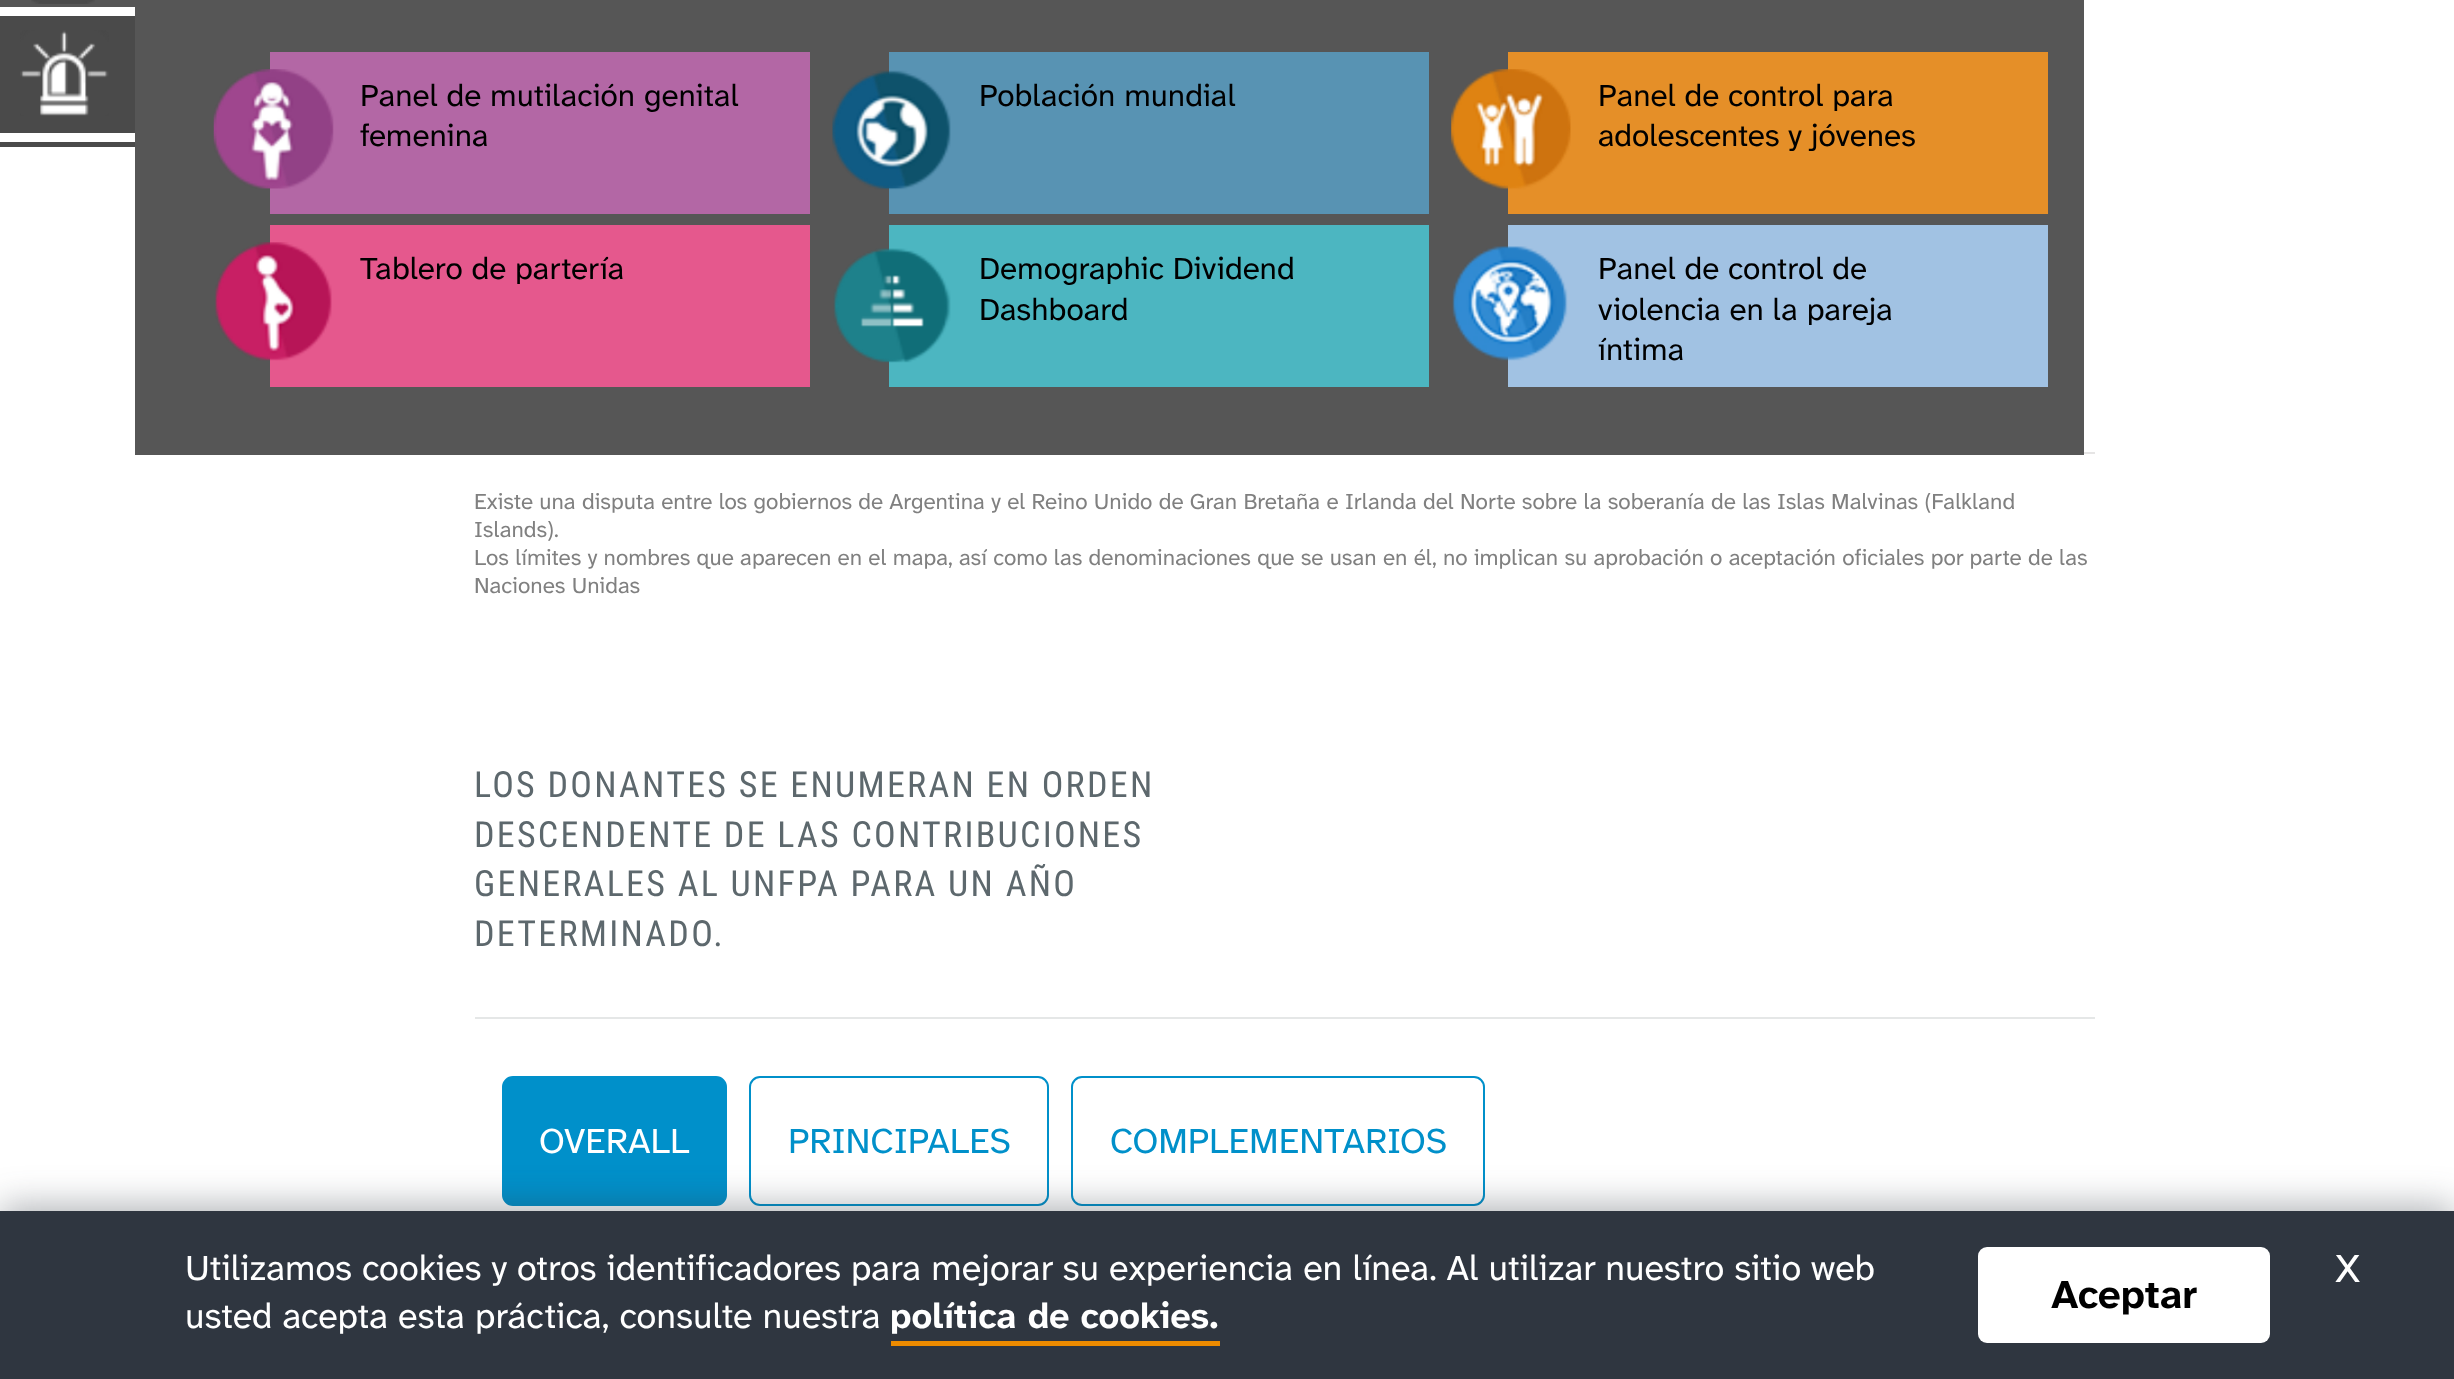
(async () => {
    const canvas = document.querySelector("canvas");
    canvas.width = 2454;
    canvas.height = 1379;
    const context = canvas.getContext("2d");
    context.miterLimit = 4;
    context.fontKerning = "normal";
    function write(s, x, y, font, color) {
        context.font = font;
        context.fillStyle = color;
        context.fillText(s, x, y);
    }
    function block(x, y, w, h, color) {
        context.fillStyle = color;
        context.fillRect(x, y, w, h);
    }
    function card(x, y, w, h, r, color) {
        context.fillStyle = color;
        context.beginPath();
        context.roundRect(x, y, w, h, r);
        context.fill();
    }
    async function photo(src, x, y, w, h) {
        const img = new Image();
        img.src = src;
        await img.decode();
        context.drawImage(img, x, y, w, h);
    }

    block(0, 0, 2454, 1379, "rgb(255, 255, 255)");
    block(0, 142, 135, 5, "rgb(74, 74, 74)");
    block(0, 16, 135, 117, "rgb(74, 74, 74)");
    await photo("media/1.png", 20, 30, 89, 86);
    block(0, 0, 135, 7, "rgb(86, 86, 86)");
    await photo("media/2.png", 31, 0, 64, 4);
    block(135, 0, 1949, 455, "rgb(86, 86, 86)");
    block(270, 52, 540, 162, "rgb(179, 103, 165)");
    await photo("media/3.png", 213, 69, 121, 120);
    write("Panel de mutilación genital", 360, 106, "31.5px Atkinson Hyperlegible Next", "rgb(0, 0, 0)");
    write("femenina", 360, 146, "31.5px Atkinson Hyperlegible Next", "rgb(0, 0, 0)");
    block(889, 52, 540, 162, "rgb(88, 147, 179)");
    await photo("media/4.png", 832, 70, 119, 120);
    write("Población mundial", 979, 106, "31.5px Atkinson Hyperlegible Next", "rgb(0, 0, 0)");
    block(1508, 52, 540, 162, "rgb(229, 143, 40)");
    await photo("media/5.png", 1451, 69, 120, 121);
    write("Panel de control para", 1598, 106, "31.5px Atkinson Hyperlegible Next", "rgb(0, 0, 0)");
    write("adolescentes y jóvenes", 1598, 146, "31.5px Atkinson Hyperlegible Next", "rgb(0, 0, 0)");
    block(270, 225, 540, 162, "rgb(229, 88, 141)");
    await photo("media/6.png", 215, 242, 117, 119);
    write("Tablero de partería", 360, 279, "31.5px Atkinson Hyperlegible Next", "rgb(0, 0, 0)");
    block(889, 225, 540, 162, "rgb(76, 182, 193)");
    await photo("media/7.png", 833, 248, 118, 115);
    write("Demographic Dividend", 979, 279, "31.5px Atkinson Hyperlegible Next", "rgb(0, 0, 0)");
    write("Dashboard", 979, 320, "31.5px Atkinson Hyperlegible Next", "rgb(0, 0, 0)");
    block(1508, 225, 540, 162, "rgb(161, 194, 227)");
    await photo("media/8.png", 1452, 246, 116, 115);
    write("Panel de control de", 1598, 279, "31.5px Atkinson Hyperlegible Next", "rgb(0, 0, 0)");
    write("violencia en la pareja", 1598, 320, "31.5px Atkinson Hyperlegible Next", "rgb(0, 0, 0)");
    write("íntima", 1598, 360, "31.5px Atkinson Hyperlegible Next", "rgb(0, 0, 0)");
    block(2084, 452, 11, 2, "rgb(230, 229, 229)");
    write("Existe una disputa entre los gobiernos de Argentina y el Reino Unido de Gran Bretaña e Irlanda del Norte sobre la soberanía de las Islas Malvinas (Falkland", 474, 509, "22.5px Atkinson Hyperlegible Next", "rgb(128, 128, 128)");
    write("Islands).", 474, 537, "22.5px Atkinson Hyperlegible Next", "rgb(128, 128, 128)");
    write("Los límites y nombres que aparecen en el mapa, así como las denominaciones que se usan en él, no implican su aprobación o aceptación oficiales por parte de las", 474, 565, "22.5px Atkinson Hyperlegible Next", "rgb(128, 128, 128)");
    write("Naciones Unidas", 474, 593, "22.5px Atkinson Hyperlegible Next", "rgb(128, 128, 128)");
    block(475, 1017, 1620, 2, "rgb(229, 231, 231)");
    context.letterSpacing = "2.25px";
    write("LOS DONANTES SE ENUMERAN EN ORDEN", 474, 797, "36px Roboto Condensed", "rgb(93, 104, 109)");
    write("DESCENDENTE DE LAS CONTRIBUCIONES", 474, 847, "36px Roboto Condensed", "rgb(93, 104, 109)");
    write("GENERALES AL UNFPA PARA UN AÑO", 474, 896, "36px Roboto Condensed", "rgb(93, 104, 109)");
    write("DETERMINADO.", 474, 946, "36px Roboto Condensed", "rgb(93, 104, 109)");
    context.fillStyle = "rgb(0, 144, 202)";
    context.beginPath();
    context.roundRect(503, 1077, 223, 128, 10);
    context.fill();
    context.strokeStyle = "rgb(0, 144, 202)";
    context.lineWidth = 2;
    context.stroke();
    context.letterSpacing = "0px";
    write("OVERALL", 539, 1153, "36px Atkinson Hyperlegible Next", "rgb(255, 255, 255)");
    context.beginPath();
    context.roundRect(750, 1077, 298, 128, 10);
    context.stroke();
    write("PRINCIPALES", 788, 1153, "36px Atkinson Hyperlegible Next", "rgb(0, 144, 202)");
    context.beginPath();
    context.roundRect(1072, 1077, 412, 128, 10);
    context.stroke();
    write("COMPLEMENTARIOS", 1110, 1153, "36px Atkinson Hyperlegible Next", "rgb(0, 144, 202)");
    context.fillStyle = "rgba(47, 54, 64, 0.39)";
    context.filter = "blur(18px)";
    context.beginPath();
    context.rect(0, 1206, 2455, 169);
    context.fill();
    context.filter = "none";
    block(0, 1211, 2454, 168, "rgb(47, 54, 64)");
    write("Utilizamos cookies y otros identificadores para mejorar su experiencia en línea. Al utilizar nuestro sitio web", 185, 1280, "36px Atkinson Hyperlegible Next", "rgb(255, 255, 255)");
    write("usted acepta esta práctica, consulte nuestra", 185, 1328, "36px Atkinson Hyperlegible Next", "rgb(255, 255, 255)");
    write("política de cookies.", 890, 1328, "bold 36px Atkinson Hyperlegible Next", "rgb(255, 255, 255)");
    block(891, 1341, 329, 5, "rgb(237, 139, 0)");
    write("X", 2335, 1282, "40.5px Atkinson Hyperlegible Next", "rgb(255, 255, 255)");
    card(1978, 1247, 292, 96, 9, "rgb(255, 255, 255)");
    write("Aceptar", 2051, 1308, "bold 40.5px Atkinson Hyperlegible Next", "rgb(0, 0, 0)");
})();
